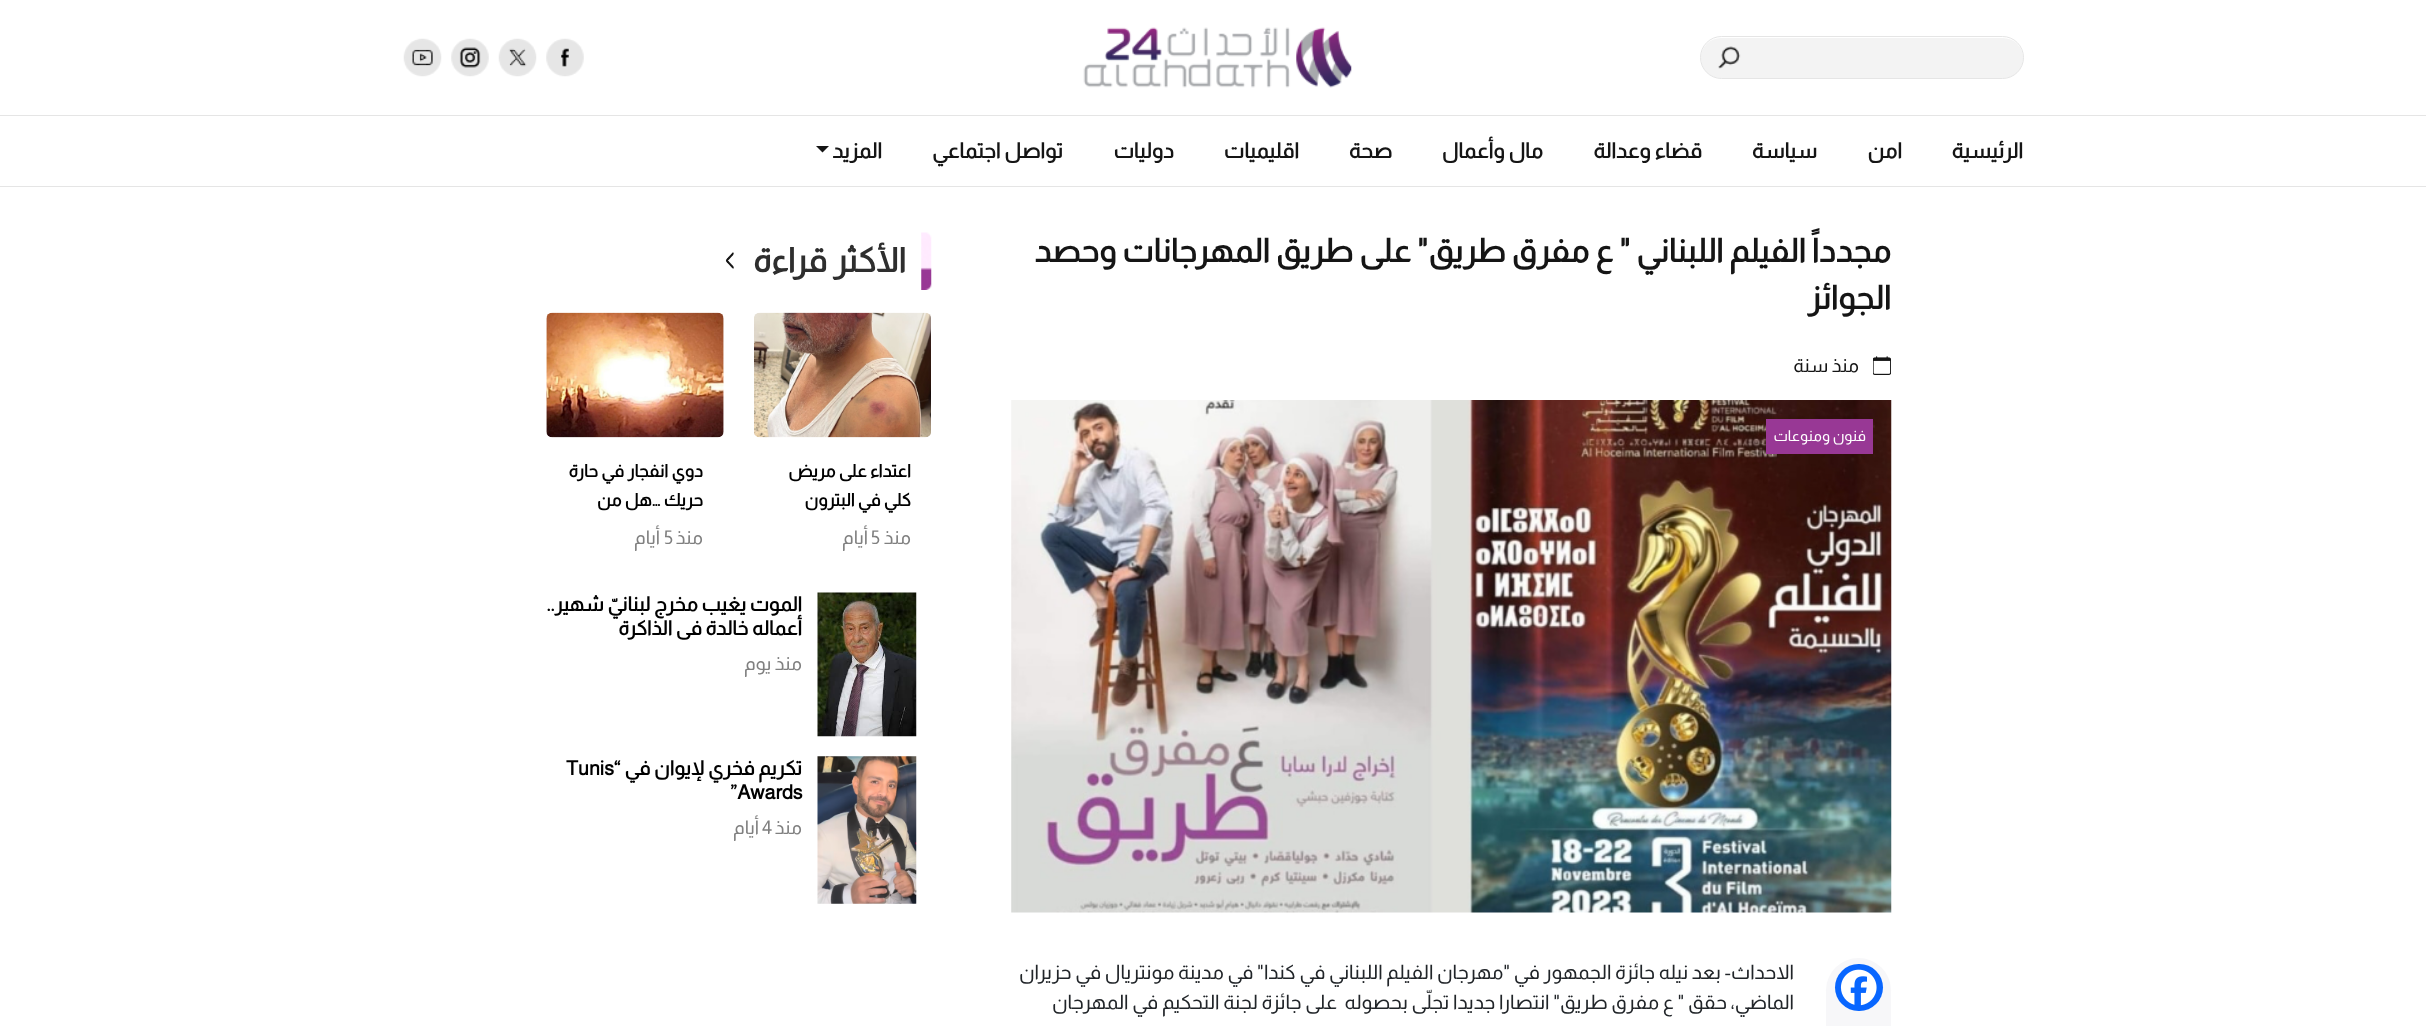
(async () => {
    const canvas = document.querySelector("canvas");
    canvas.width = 2426;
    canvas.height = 1026;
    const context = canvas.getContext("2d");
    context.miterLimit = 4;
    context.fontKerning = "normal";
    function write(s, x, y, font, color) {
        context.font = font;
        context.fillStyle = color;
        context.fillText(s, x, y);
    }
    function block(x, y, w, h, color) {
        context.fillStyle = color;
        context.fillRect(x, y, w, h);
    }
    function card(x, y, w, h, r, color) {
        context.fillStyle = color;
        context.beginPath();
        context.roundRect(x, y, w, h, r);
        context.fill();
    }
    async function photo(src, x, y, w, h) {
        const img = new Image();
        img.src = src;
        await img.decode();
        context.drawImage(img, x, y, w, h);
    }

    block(0, 0, 2426, 1026, "rgb(255, 255, 255)");
    card(1701, 38, 322, 40, 20, "rgb(243, 243, 243)");
    await photo("media/1.png", 1718, 46, 23, 23);
    context.beginPath();
    context.roundRect(1700.5, 36.5, 323, 42, 21);
    context.strokeStyle = "rgb(229, 229, 229)";
    context.stroke();
    await photo("media/2.png", 1083, 27, 269, 61);
    await photo("media/3.png", 546, 38, 38, 39);
    await photo("media/4.png", 498, 38, 39, 39);
    await photo("media/5.png", 451, 38, 38, 39);
    await photo("media/6.png", 403, 38, 39, 39);
    block(0, 115, 2426, 1, "rgb(229, 229, 229)");
    block(0, 186, 2426, 1, "rgb(229, 229, 229)");
    context.direction = "rtl";
    write("الرئيسية", 2023, 158, "bold 21.25px Almarai", "rgb(21, 21, 21)");
    write("امن", 1902, 158, "bold 21.25px Almarai", "rgb(21, 21, 21)");
    write("سياسة", 1817, 158, "bold 21.25px Almarai", "rgb(21, 21, 21)");
    write("قضاء وعدالة", 1702, 158, "bold 21.25px Almarai", "rgb(21, 21, 21)");
    write("مال وأعمال", 1543, 158, "bold 21.25px Almarai", "rgb(21, 21, 21)");
    write("صحة", 1392, 158, "bold 21.25px Almarai", "rgb(21, 21, 21)");
    write("اقليميات", 1299, 158, "bold 21.25px Almarai", "rgb(21, 21, 21)");
    write("دوليات", 1174, 158, "bold 21.25px Almarai", "rgb(21, 21, 21)");
    write("تواصل اجتماعي", 1063, 158, "bold 21.25px Almarai", "rgb(21, 21, 21)");
    write("المزيد", 882, 158, "bold 21.25px Almarai", "rgb(21, 21, 21)");
    context.beginPath();
    context.moveTo(816, 146);
    context.lineTo(829, 146);
    context.lineTo(822.5, 152.5);
    context.closePath();
    context.fill();
    write("مجدداً الفيلم اللبناني \" ع مفرق طريق\"", 1891, 262, "bold 32.5px Almarai", "rgb(21, 21, 21)");
    write("على طريق المهرجانات وحصد", 1411, 262, "bold 32.5px Almarai", "rgb(21, 21, 21)");
    write("الجوائز", 1891, 309, "bold 32.5px Almarai", "rgb(21, 21, 21)");
    await photo("media/7.png", 1873, 356, 18, 19);
    write("منذ سنة", 1859, 372, "19px Almarai", "rgb(21, 21, 21)");
    await photo("media/8.png", 1011, 400, 881, 513);
    block(1766, 419, 107, 35, "rgb(152, 56, 149)");
    write("فنون ومنوعات", 1866, 441, "15px Almarai", "rgb(255, 255, 255)");
    card(1826, 958, 65, 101, 32.5, "rgb(247, 247, 249)");
    card(1835, 964, 48, 47, 23.5, "rgb(8, 102, 255)");
    await photo("media/9.png", 1840, 969, 37, 37);
    write("الاحداث- بعد نيله جائزة الجمهور في \"مهرجان الفيلم اللبناني في كندا\" في مدينة مونتريال في حزيران", 1794, 979, "20px Almarai", "rgb(33, 37, 41)");
    write("الماضي، حقق \" ع مفرق طريق\" انتصارا جديدا تجلّى بحصوله  على جائزة لجنة التحكيم في المهرجان", 1794, 1009, "20px Almarai", "rgb(33, 37, 41)");
    await photo("media/10.png", 921, 232, 11, 58);
    write("الأكثر قراءة", 906, 272, "bold 33.75px Almarai", "rgb(46, 46, 46)");
    await photo("media/11.png", 725, 252, 9, 17);
    await photo("media/12.png", 754, 312, 177, 126);
    write("اعتداء على مريض", 911, 477, "bold 17.5px Almarai", "rgb(0, 0, 0)");
    write("كلي في البترون", 911, 506, "bold 17.5px Almarai", "rgb(0, 0, 0)");
    write("منذ", 911, 544, "19px Almarai", "rgb(128, 128, 128)");
    context.direction = "ltr";
    write("5", 871, 544, "19px Almarai", "rgb(128, 128, 128)");
    context.direction = "rtl";
    write("أيام", 868, 544, "19px Almarai", "rgb(128, 128, 128)");
    await photo("media/13.png", 546, 312, 178, 126);
    write("دوي انفجار", 703, 477, "bold 17.5px Almarai", "rgb(0, 0, 0)");
    write("في حارة", 624, 477, "bold 17.5px Almarai", "rgb(0, 0, 0)");
    write("حريك …هل من", 703, 506, "bold 17.5px Almarai", "rgb(0, 0, 0)");
    write("منذ", 703, 544, "19px Almarai", "rgb(128, 128, 128)");
    context.direction = "ltr";
    write("5", 664, 544, "19px Almarai", "rgb(128, 128, 128)");
    context.direction = "rtl";
    write("أيام", 660, 544, "19px Almarai", "rgb(128, 128, 128)");
    await photo("media/14.png", 817, 592, 100, 145);
    write("الموت يغيب مخرج لبنانيّ شهير..", 802, 611, "bold 20px Almarai", "rgb(0, 0, 0)");
    context.save();
    context.beginPath();
    context.rect(546, 593, 257, 47);
    context.clip();
    write("أعماله خالدة في الذاكرة", 802, 635, "bold 20px Almarai", "rgb(0, 0, 0)");
    context.restore();
    write("منذ يوم", 802, 670, "19px Almarai", "rgb(128, 128, 128)");
    await photo("media/15.png", 817, 756, 100, 148);
    write("تكريم فخري لإيوان في “", 802, 775, "bold 20px Almarai", "rgb(0, 0, 0)");
    context.direction = "ltr";
    write("Tunis", 566, 775, "bold 20px Almarai", "rgb(0, 0, 0)");
    write("”Awards", 730, 799, "bold 20px Almarai", "rgb(0, 0, 0)");
    context.direction = "rtl";
    write("منذ", 802, 834, "19px Almarai", "rgb(128, 128, 128)");
    context.direction = "ltr";
    write("4", 762, 834, "19px Almarai", "rgb(128, 128, 128)");
    context.direction = "rtl";
    write("أيام", 759, 834, "19px Almarai", "rgb(128, 128, 128)");
})();
